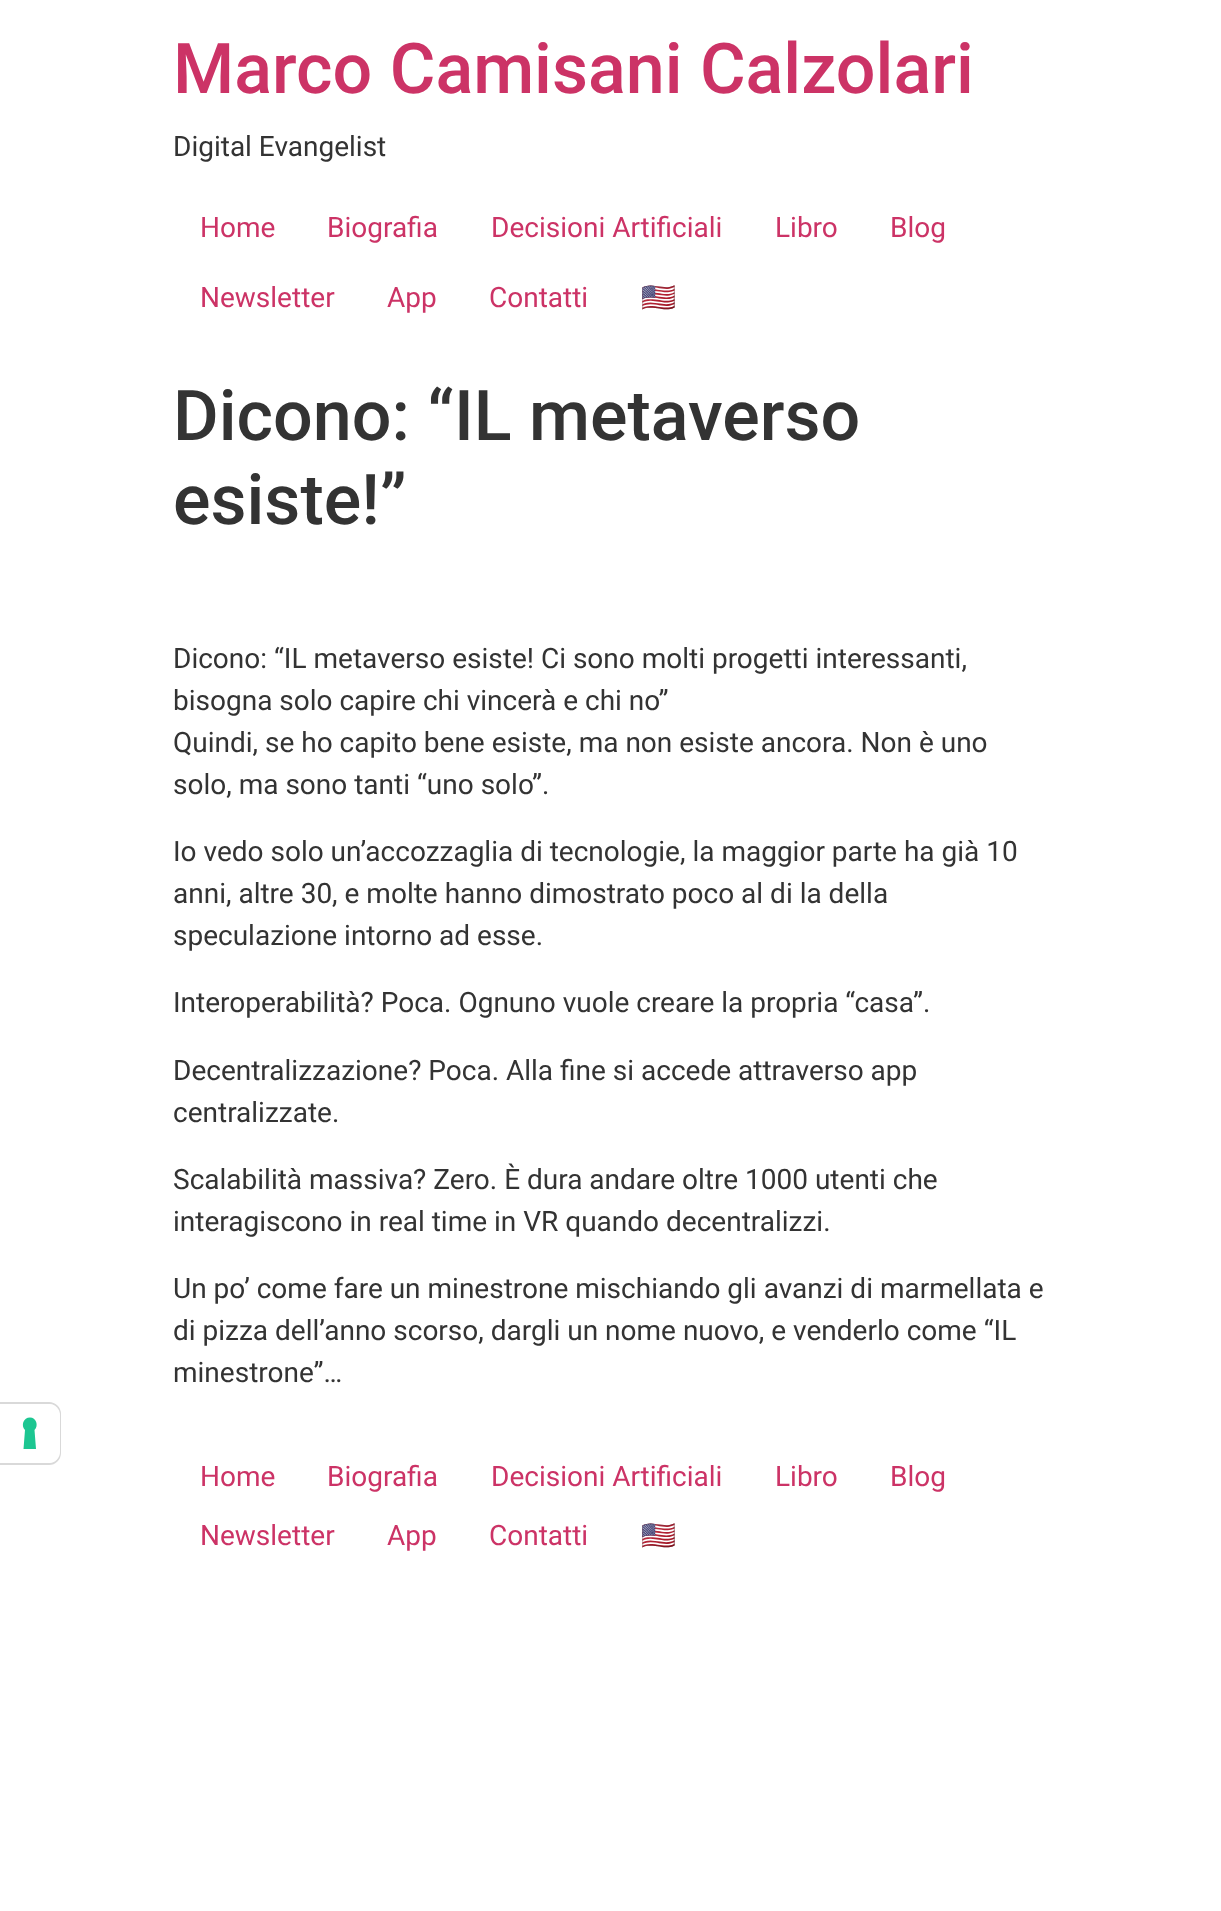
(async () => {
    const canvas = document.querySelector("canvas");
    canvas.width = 1221;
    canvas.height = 1911;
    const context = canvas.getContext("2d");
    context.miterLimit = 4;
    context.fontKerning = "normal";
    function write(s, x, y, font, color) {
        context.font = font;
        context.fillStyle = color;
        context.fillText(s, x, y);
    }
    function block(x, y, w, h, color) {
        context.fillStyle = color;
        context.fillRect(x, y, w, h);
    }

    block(0, 0, 1221, 1911, "rgb(255, 255, 255)");
    write("Marco Camisani Calzolari", 173, 93, "500 70px Roboto", "rgb(204, 51, 102)");
    write("Digital Evangelist", 173, 156, "28px Roboto", "rgb(51, 51, 51)");
    write("Home", 200, 237, "28px Roboto", "rgb(204, 51, 102)");
    write("Biografia", 327, 237, "28px Roboto", "rgb(204, 51, 102)");
    write("Decisioni Artificiali", 491, 237, "28px Roboto", "rgb(204, 51, 102)");
    write("Libro", 775, 237, "28px Roboto", "rgb(204, 51, 102)");
    write("Blog", 890, 237, "28px Roboto", "rgb(204, 51, 102)");
    write("Newsletter", 200, 307, "28px Roboto", "rgb(204, 51, 102)");
    write("App", 387, 307, "28px Roboto", "rgb(204, 51, 102)");
    write("Contatti", 489, 307, "28px Roboto", "rgb(204, 51, 102)");
    write("🇺🇸", 641, 307, "28px Noto Color Emoji", "rgb(204, 51, 102)");
    write("Dicono: “IL metaverso", 173, 440, "500 70px Roboto", "rgb(51, 51, 51)");
    write("esiste!”", 173, 524, "500 70px Roboto", "rgb(51, 51, 51)");
    write("Dicono: “IL metaverso esiste! Ci sono molti progetti interessanti,", 173, 668, "28px Roboto", "rgb(51, 51, 51)");
    write("bisogna solo capire chi vincerà e chi no”", 173, 710, "28px Roboto", "rgb(51, 51, 51)");
    write("Quindi, se ho capito bene esiste, ma non esiste ancora. Non è uno", 173, 752, "28px Roboto", "rgb(51, 51, 51)");
    write("solo, ma sono tanti “uno solo”.", 173, 794, "28px Roboto", "rgb(51, 51, 51)");
    write("Io vedo solo un’accozzaglia di tecnologie, la maggior parte ha già 10", 173, 861, "28px Roboto", "rgb(51, 51, 51)");
    write("anni, altre 30, e molte hanno dimostrato poco al di la della", 173, 903, "28px Roboto", "rgb(51, 51, 51)");
    write("speculazione intorno ad esse.", 173, 945, "28px Roboto", "rgb(51, 51, 51)");
    write("Interoperabilità? Poca. Ognuno vuole creare la propria “casa”.", 173, 1012, "28px Roboto", "rgb(51, 51, 51)");
    write("Decentralizzazione? Poca. Alla fine si accede attraverso app", 173, 1080, "28px Roboto", "rgb(51, 51, 51)");
    write("centralizzate.", 173, 1122, "28px Roboto", "rgb(51, 51, 51)");
    write("Scalabilità massiva? Zero. È dura andare oltre 1000 utenti che", 173, 1189, "28px Roboto", "rgb(51, 51, 51)");
    write("interagiscono in real time in VR quando decentralizzi.", 173, 1231, "28px Roboto", "rgb(51, 51, 51)");
    write("Un po’ come fare un minestrone mischiando gli avanzi di marmellata e", 173, 1298, "28px Roboto", "rgb(51, 51, 51)");
    write("di pizza dell’anno scorso, dargli un nome nuovo, e venderlo come “IL", 173, 1340, "28px Roboto", "rgb(51, 51, 51)");
    write("minestrone”…", 173, 1382, "28px Roboto", "rgb(51, 51, 51)");
    context.beginPath();
    context.moveTo(-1, 1403);
    context.lineTo(49, 1403);
    context.bezierCurveTo(55, 1403, 60, 1408, 60, 1414);
    context.lineTo(60, 1453);
    context.bezierCurveTo(60, 1459, 55, 1464, 49, 1464);
    context.lineTo(-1, 1464);
    context.closePath();
    context.strokeStyle = "rgb(217, 217, 217)";
    context.lineWidth = 2;
    context.stroke();
    context.fillStyle = "rgb(255, 255, 255)";
    context.beginPath();
    context.roundRect(0, 1404, 60, 59, [0, 11, 11, 0]);
    context.fill();
    context.fillStyle = "rgb(28, 198, 145)";
    context.beginPath();
    context.moveTo(30, 1417.5);
    context.bezierCurveTo(36, 1417.5, 39, 1425.5, 34.5, 1430);
    context.lineTo(36, 1449);
    context.lineTo(23.5, 1449);
    context.lineTo(25, 1430);
    context.bezierCurveTo(20.5, 1425.5, 23.5, 1417.5, 30, 1417.5);
    context.closePath();
    context.fill("evenodd");
    write("Home", 200, 1486, "28px Roboto", "rgb(204, 51, 102)");
    write("Biografia", 327, 1486, "28px Roboto", "rgb(204, 51, 102)");
    write("Decisioni Artificiali", 491, 1486, "28px Roboto", "rgb(204, 51, 102)");
    write("Libro", 775, 1486, "28px Roboto", "rgb(204, 51, 102)");
    write("Blog", 890, 1486, "28px Roboto", "rgb(204, 51, 102)");
    write("Newsletter", 200, 1545, "28px Roboto", "rgb(204, 51, 102)");
    write("App", 387, 1545, "28px Roboto", "rgb(204, 51, 102)");
    write("Contatti", 489, 1545, "28px Roboto", "rgb(204, 51, 102)");
    write("🇺🇸", 641, 1545, "28px Noto Color Emoji", "rgb(204, 51, 102)");
})();
